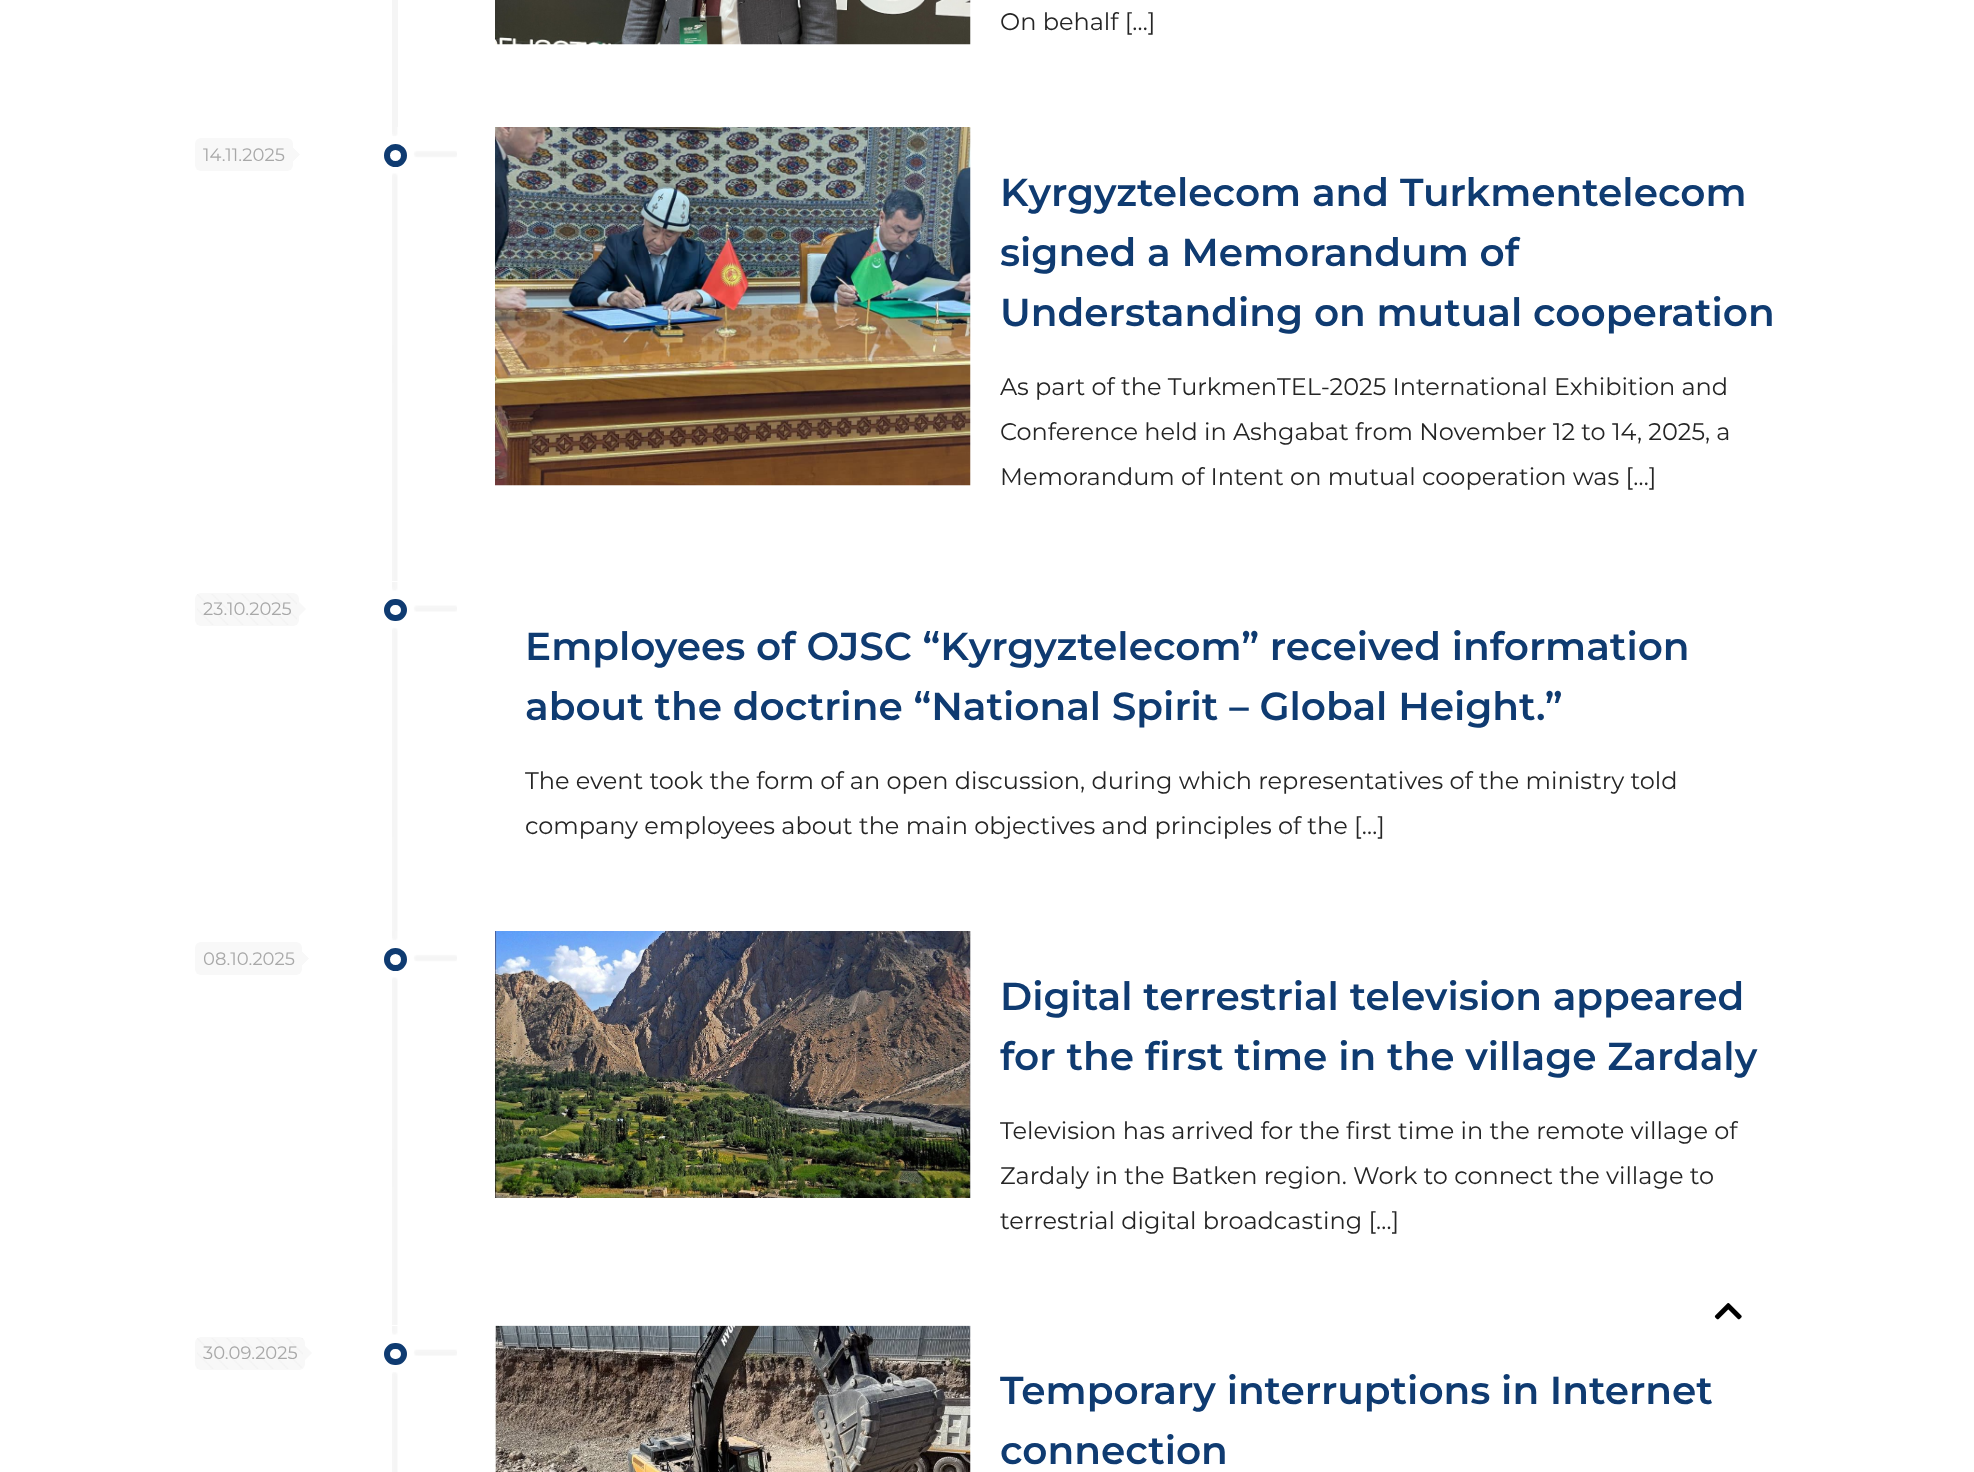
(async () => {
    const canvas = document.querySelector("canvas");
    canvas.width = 1974;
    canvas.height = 1472;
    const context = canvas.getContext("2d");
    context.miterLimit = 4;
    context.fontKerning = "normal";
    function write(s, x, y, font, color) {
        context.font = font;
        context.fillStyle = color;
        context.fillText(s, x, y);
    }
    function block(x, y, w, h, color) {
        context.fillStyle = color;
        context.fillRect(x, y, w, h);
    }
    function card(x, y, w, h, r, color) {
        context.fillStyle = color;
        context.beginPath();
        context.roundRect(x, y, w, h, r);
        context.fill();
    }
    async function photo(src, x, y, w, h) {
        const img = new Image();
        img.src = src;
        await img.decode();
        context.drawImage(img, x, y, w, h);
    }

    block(0, 0, 1974, 1472, "rgb(255, 255, 255)");
    block(392, 0, 6, 127, "rgb(245, 245, 245)");
    await photo("media/1.png", 495, 0, 476, 45);
    write("On behalf […]", 1000, 30, "24px Montserrat", "rgb(37, 37, 37)");
    await photo("media/2.png", 392, 127, 65, 454);
    card(195, 138, 98, 33, 6, "rgb(248, 248, 248)");
    write("14.11.2025", 203, 161, "18px Montserrat", "rgb(168, 168, 168)");
    context.fillStyle = "rgb(248, 248, 248)";
    context.beginPath();
    context.moveTo(292.5, 162);
    context.lineTo(292.5, 147);
    context.lineTo(300, 154.5);
    context.closePath();
    context.fill();
    context.beginPath();
    context.arc(395.5, 155.5, 8.5, 0, Math.PI * 2);
    context.strokeStyle = "rgb(15, 59, 113)";
    context.lineWidth = 6;
    context.stroke();
    await photo("media/3.png", 495, 127, 476, 359);
    write("Kyrgyztelecom and Turkmentelecom", 1000, 206, "600 39px Montserrat", "rgb(15, 59, 113)");
    write("signed a Memorandum of", 1000, 266, "600 39px Montserrat", "rgb(15, 59, 113)");
    write("Understanding on mutual cooperation", 1000, 326, "600 39px Montserrat", "rgb(15, 59, 113)");
    write("As part of the TurkmenTEL-2025 International Exhibition and", 1000, 395, "24px Montserrat", "rgb(37, 37, 37)");
    write("Conference held in Ashgabat from November 12 to 14, 2025, a", 1000, 440, "24px Montserrat", "rgb(37, 37, 37)");
    write("Memorandum of Intent on mutual cooperation was […]", 1000, 485, "24px Montserrat", "rgb(37, 37, 37)");
    await photo("media/4.png", 392, 582, 65, 349);
    card(195, 593, 104, 33, 6, "rgb(248, 248, 248)");
    await photo("media/5.png", 197, 594, 100, 31);
    write("23.10.2025", 203, 615, "18px Montserrat", "rgb(168, 168, 168)");
    context.fillStyle = "rgb(248, 248, 248)";
    context.beginPath();
    context.moveTo(298.5, 616.5);
    context.lineTo(298.5, 601.5);
    context.lineTo(306, 609);
    context.closePath();
    context.fill();
    context.beginPath();
    context.roundRect(387, 602, 17, 16, 8);
    context.stroke();
    write("Employees of OJSC “Kyrgyztelecom” received information", 525, 660, "600 39px Montserrat", "rgb(15, 59, 113)");
    write("about the doctrine “National Spirit – Global Height.”", 525, 720, "600 39px Montserrat", "rgb(15, 59, 113)");
    write("The event took the form of an open discussion, during which representatives of the ministry told", 525, 789, "24px Montserrat", "rgb(37, 37, 37)");
    write("company employees about the main objectives and principles of the […]", 525, 834, "24px Montserrat", "rgb(37, 37, 37)");
    await photo("media/6.png", 392, 931, 65, 394);
    card(195, 942, 107, 33, 6, "rgb(248, 248, 248)");
    write("08.10.2025", 203, 965, "18px Montserrat", "rgb(168, 168, 168)");
    context.fillStyle = "rgb(248, 248, 248)";
    context.beginPath();
    context.moveTo(301.5, 966);
    context.lineTo(301.5, 951);
    context.lineTo(309, 958.5);
    context.closePath();
    context.fill();
    context.beginPath();
    context.arc(395.5, 959.5, 8.5, 0, Math.PI * 2);
    context.stroke();
    await photo("media/7.png", 495, 931, 476, 267);
    write("Digital terrestrial television appeared", 1000, 1010, "600 39px Montserrat", "rgb(15, 59, 113)");
    write("for the first time in the village Zardaly", 1000, 1070, "600 39px Montserrat", "rgb(15, 59, 113)");
    write("Television has arrived for the first time in the remote village of", 1000, 1139, "24px Montserrat", "rgb(37, 37, 37)");
    write("Zardaly in the Batken region. Work to connect the village to", 1000, 1184, "24px Montserrat", "rgb(37, 37, 37)");
    write("terrestrial digital broadcasting […]", 1000, 1229, "24px Montserrat", "rgb(37, 37, 37)");
    await photo("media/8.png", 392, 1326, 65, 146);
    card(195, 1337, 110, 33, 6, "rgb(248, 248, 248)");
    await photo("media/9.png", 197, 1338, 106, 31);
    write("30.09.2025", 203, 1359, "18px Montserrat", "rgb(168, 168, 168)");
    context.fillStyle = "rgb(248, 248, 248)";
    context.beginPath();
    context.moveTo(304.5, 1360.5);
    context.lineTo(304.5, 1345.5);
    context.lineTo(312, 1353);
    context.closePath();
    context.fill();
    context.beginPath();
    context.roundRect(387, 1346, 17, 16, 8);
    context.stroke();
    await photo("media/10.png", 495, 1325, 476, 147);
    write("Temporary interruptions in Internet", 1000, 1404, "600 39px Montserrat", "rgb(15, 59, 113)");
    write("connection", 1000, 1464, "600 39px Montserrat", "rgb(15, 59, 113)");
    await photo("media/11.png", 1714, 1303, 28, 17);
})();
